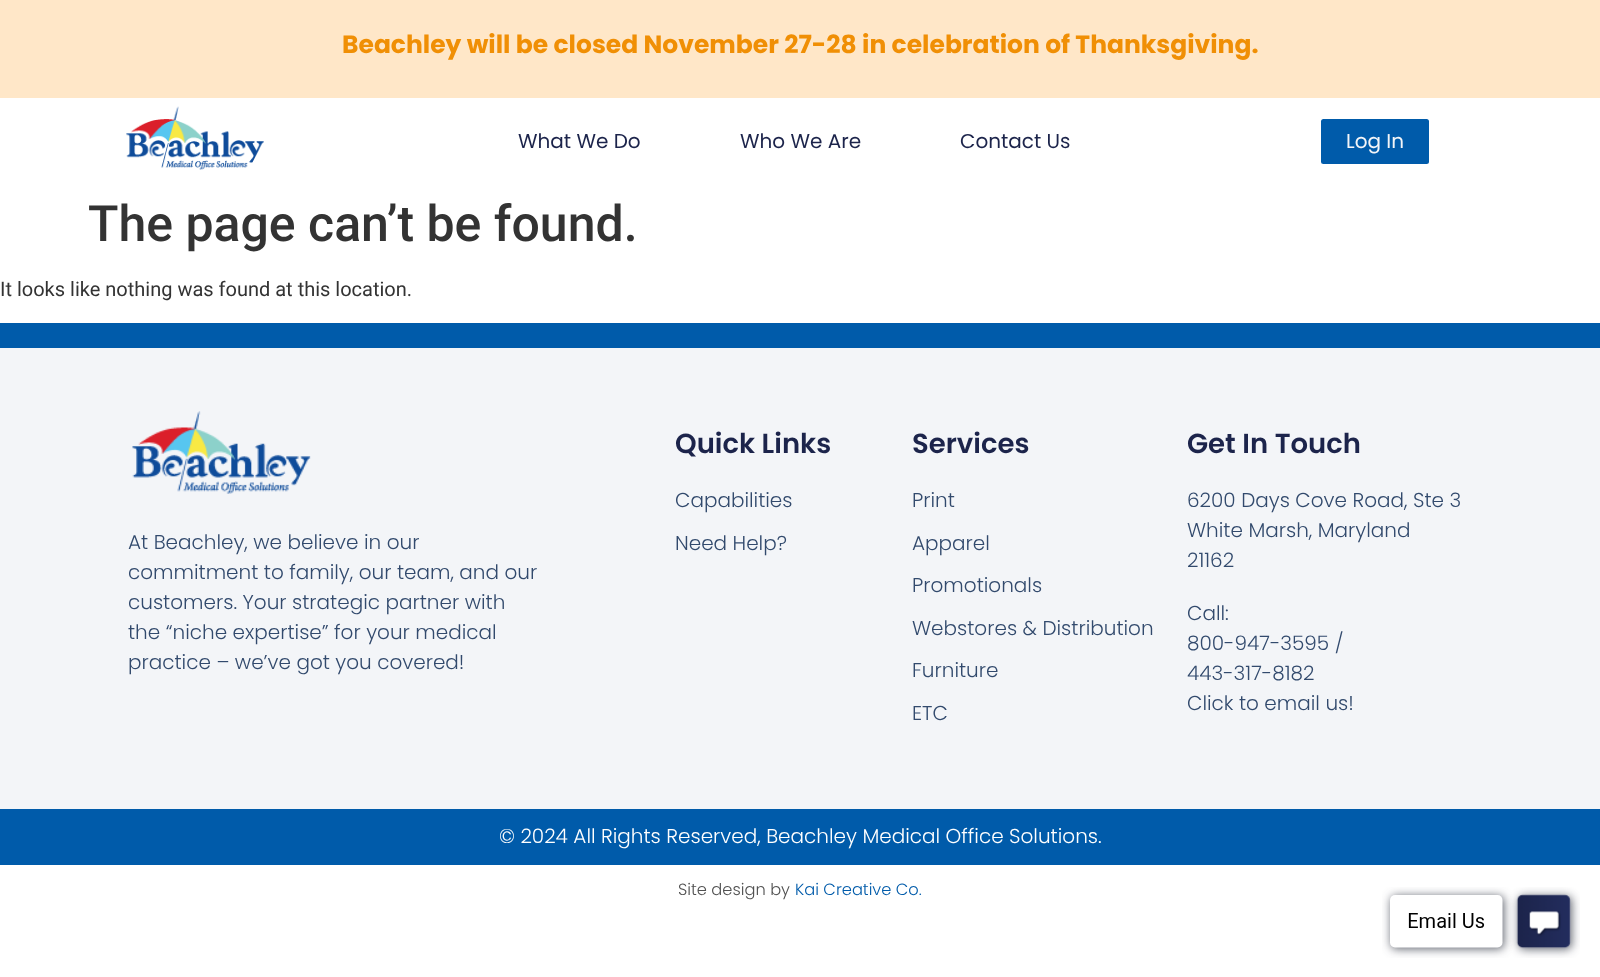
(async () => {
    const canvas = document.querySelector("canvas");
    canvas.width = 1600;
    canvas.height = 977;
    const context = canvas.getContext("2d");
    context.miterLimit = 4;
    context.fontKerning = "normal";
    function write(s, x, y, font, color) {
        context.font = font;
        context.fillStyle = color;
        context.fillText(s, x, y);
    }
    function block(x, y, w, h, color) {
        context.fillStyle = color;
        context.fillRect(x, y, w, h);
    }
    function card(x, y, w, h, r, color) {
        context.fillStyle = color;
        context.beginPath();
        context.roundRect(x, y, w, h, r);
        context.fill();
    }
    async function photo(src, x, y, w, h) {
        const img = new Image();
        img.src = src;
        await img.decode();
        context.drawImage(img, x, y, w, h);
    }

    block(0, 0, 1600, 977, "rgb(255, 255, 255)");
    block(0, 0, 1600, 98, "rgb(255, 231, 200)");
    write("Beachley will be closed November 27-28 in celebration of Thanksgiving.", 342, 53, "bold 25px Poppins", "rgb(240, 143, 5)");
    await photo("media/1.png", 126, 106, 138, 64);
    write("What We Do", 518, 148, "20px Poppins", "rgb(28, 36, 75)");
    write("Who We Are", 740, 148, "20px Poppins", "rgb(28, 36, 75)");
    write("Contact Us", 960, 148, "20px Poppins", "rgb(28, 36, 75)");
    card(1321, 119, 108, 45, 2.5, "rgb(0, 91, 170)");
    write("Log In", 1346, 148, "20px Poppins", "rgb(243, 245, 248)");
    write("The page can’t be found.", 88, 241, "500 50px Roboto", "rgb(51, 51, 51)");
    write("It looks like nothing was found at this location.", 0, 296, "20px Roboto", "rgb(51, 51, 51)");
    block(0, 323, 1600, 25, "rgb(0, 91, 170)");
    block(0, 348, 1600, 461, "rgb(243, 245, 248)");
    await photo("media/2.png", 132, 411, 179, 83);
    write("At Beachley, we believe in our", 128, 549, "300 20px Poppins", "rgb(50, 74, 109)");
    write("commitment to family, our team, and our", 128, 579, "300 20px Poppins", "rgb(50, 74, 109)");
    write("customers. Your strategic partner with", 128, 609, "300 20px Poppins", "rgb(50, 74, 109)");
    write("the “niche expertise” for your medical", 128, 639, "300 20px Poppins", "rgb(50, 74, 109)");
    write("practice – we’ve got you covered!", 128, 669, "300 20px Poppins", "rgb(50, 74, 109)");
    write("Quick Links", 675, 453, "600 27.5px Poppins", "rgb(28, 36, 75)");
    write("Capabilities", 675, 507, "300 20px Poppins", "rgb(50, 74, 109)");
    write("Need Help?", 675, 550, "300 20px Poppins", "rgb(50, 74, 109)");
    write("Services", 912, 453, "600 27.5px Poppins", "rgb(28, 36, 75)");
    write("Print", 912, 507, "300 20px Poppins", "rgb(50, 74, 109)");
    write("Apparel", 912, 550, "300 20px Poppins", "rgb(50, 74, 109)");
    write("Promotionals", 912, 592, "300 20px Poppins", "rgb(50, 74, 109)");
    write("Webstores & Distribution", 912, 635, "300 20px Poppins", "rgb(50, 74, 109)");
    write("Furniture", 912, 677, "300 20px Poppins", "rgb(50, 74, 109)");
    write("ETC", 912, 720, "300 20px Poppins", "rgb(50, 74, 109)");
    write("Get In Touch", 1187, 453, "600 27.5px Poppins", "rgb(28, 36, 75)");
    write("6200 Days Cove Road, Ste 3", 1187, 507, "300 20px Poppins", "rgb(50, 74, 109)");
    write("White Marsh, Maryland", 1187, 537, "300 20px Poppins", "rgb(50, 74, 109)");
    write("21162", 1187, 567, "300 20px Poppins", "rgb(50, 74, 109)");
    write("Call:", 1187, 620, "300 20px Poppins", "rgb(50, 74, 109)");
    write("800-947-3595 /", 1187, 650, "300 20px Poppins", "rgb(50, 74, 109)");
    write("443-317-8182", 1187, 680, "300 20px Poppins", "rgb(50, 74, 109)");
    write("Click to email us!", 1187, 710, "300 20px Poppins", "rgb(50, 74, 109)");
    block(0, 809, 1600, 56, "rgb(0, 91, 170)");
    write("© 2024 All Rights Reserved, Beachley Medical Office Solutions.", 499, 843, "300 20px Poppins", "rgb(255, 255, 255)");
    write("Site design by", 678, 895, "300 16.25px Poppins", "rgb(80, 80, 80)");
    write("Kai Creative Co.", 795, 895, "300 16.25px Poppins", "rgb(0, 91, 170)");
    await photo("media/3.png", 1382, 887, 198, 71);
})();
